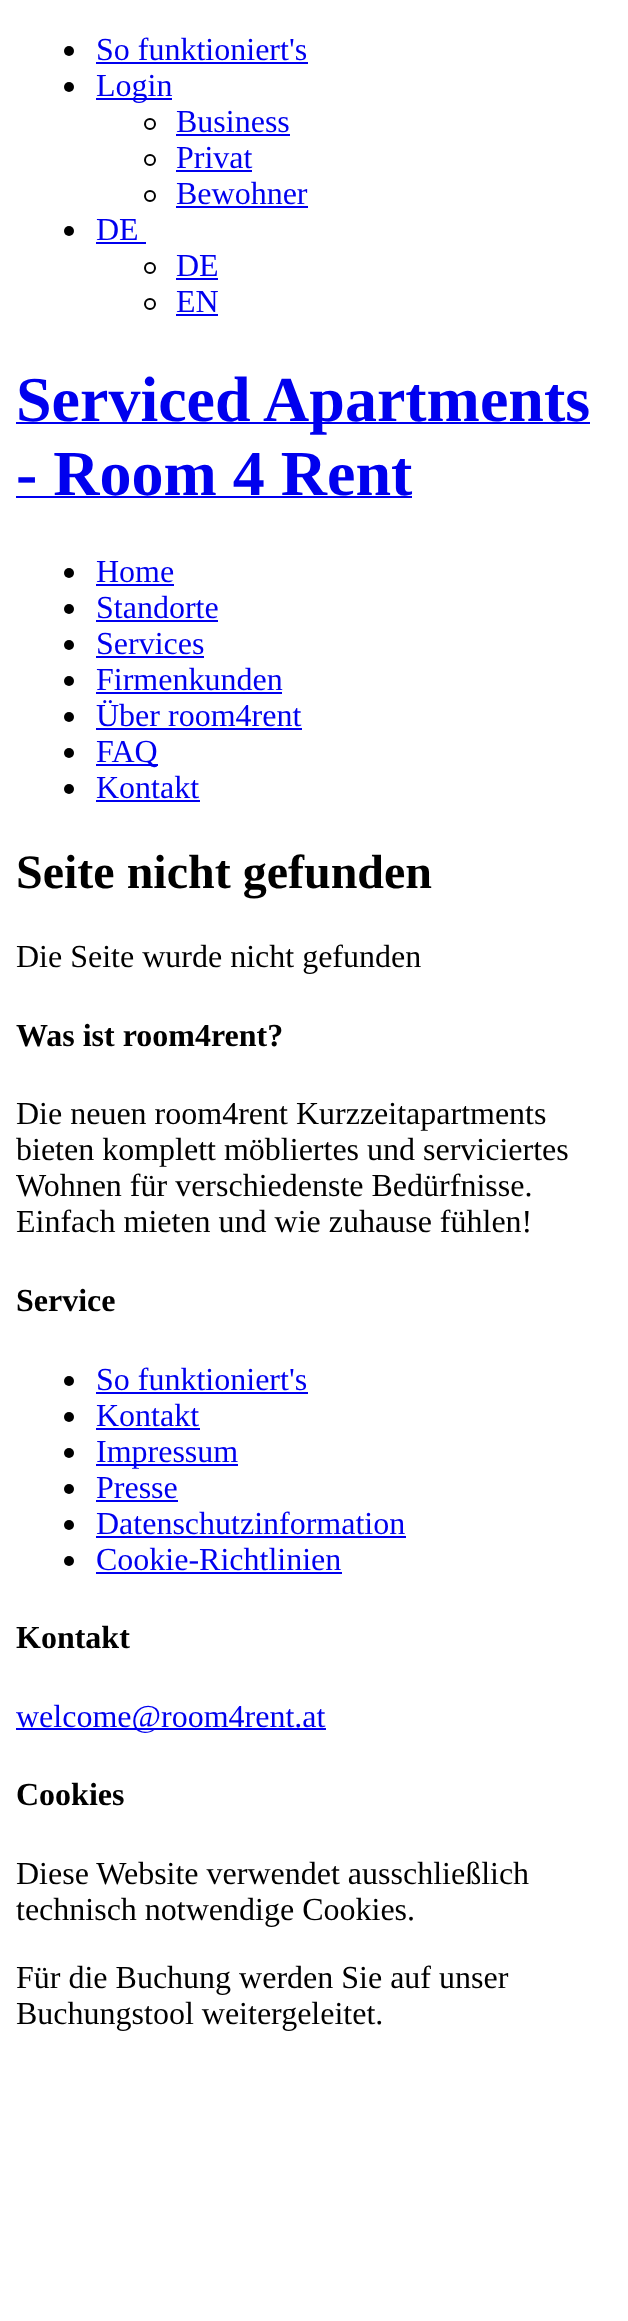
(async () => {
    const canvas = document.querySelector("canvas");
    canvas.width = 628;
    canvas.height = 2321;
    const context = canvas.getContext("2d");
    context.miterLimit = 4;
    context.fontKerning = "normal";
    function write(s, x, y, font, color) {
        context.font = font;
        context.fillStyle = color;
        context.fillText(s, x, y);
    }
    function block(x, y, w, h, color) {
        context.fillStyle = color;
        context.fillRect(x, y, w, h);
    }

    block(0, 0, 628, 2321, "rgb(255, 255, 255)");
    context.fillStyle = "rgb(0, 0, 0)";
    context.beginPath();
    context.arc(69, 51, 5, 0, Math.PI * 2);
    context.fill();
    write("So funktioniert's", 96, 60, "32px Liberation Serif", "rgb(0, 0, 238)");
    block(96, 62, 212, 2, "rgb(0, 0, 238)");
    context.fillStyle = "rgb(0, 0, 0)";
    context.beginPath();
    context.arc(69, 87, 5, 0, Math.PI * 2);
    context.fill();
    block(96, 98, 76, 2, "rgb(0, 0, 238)");
    write("Login", 96, 96, "32px Liberation Serif", "rgb(0, 0, 238)");
    context.beginPath();
    context.arc(150, 124, 5, 0, Math.PI * 2);
    context.strokeStyle = "rgb(0, 0, 0)";
    context.lineWidth = 2;
    context.stroke();
    write("Business", 176, 132, "32px Liberation Serif", "rgb(0, 0, 238)");
    block(176, 134, 114, 2, "rgb(0, 0, 238)");
    context.beginPath();
    context.arc(150, 160, 5, 0, Math.PI * 2);
    context.stroke();
    write("Privat", 176, 168, "32px Liberation Serif", "rgb(0, 0, 238)");
    block(176, 170, 76, 2, "rgb(0, 0, 238)");
    context.beginPath();
    context.arc(150, 196, 5, 0, Math.PI * 2);
    context.stroke();
    write("Bewohner", 176, 204, "32px Liberation Serif", "rgb(0, 0, 238)");
    block(176, 206, 132, 2, "rgb(0, 0, 238)");
    context.fillStyle = "rgb(0, 0, 0)";
    context.beginPath();
    context.arc(69, 231, 5, 0, Math.PI * 2);
    context.fill();
    write("DE", 96, 240, "32px Liberation Serif", "rgb(0, 0, 238)");
    block(96, 242, 50, 2, "rgb(0, 0, 238)");
    context.beginPath();
    context.arc(150, 268, 5, 0, Math.PI * 2);
    context.stroke();
    write("DE", 176, 276, "32px Liberation Serif", "rgb(0, 0, 238)");
    block(176, 278, 42, 2, "rgb(0, 0, 238)");
    context.beginPath();
    context.arc(150, 304, 5, 0, Math.PI * 2);
    context.stroke();
    write("EN", 176, 312, "32px Liberation Serif", "rgb(0, 0, 238)");
    block(176, 314, 42, 2, "rgb(0, 0, 238)");
    block(16, 422, 574, 2, "rgb(0, 0, 238)");
    write("Serviced Apartments", 16, 421, "bold 64px Liberation Serif", "rgb(0, 0, 238)");
    write("- Room 4 Rent", 16, 495, "bold 64px Liberation Serif", "rgb(0, 0, 238)");
    block(16, 496, 396, 2, "rgb(0, 0, 238)");
    context.fillStyle = "rgb(0, 0, 0)";
    context.beginPath();
    context.arc(69, 573, 5, 0, Math.PI * 2);
    context.fill();
    write("Home", 96, 582, "32px Liberation Serif", "rgb(0, 0, 238)");
    block(96, 584, 78, 2, "rgb(0, 0, 238)");
    context.fillStyle = "rgb(0, 0, 0)";
    context.beginPath();
    context.arc(69, 609, 5, 0, Math.PI * 2);
    context.fill();
    write("Standorte", 96, 618, "32px Liberation Serif", "rgb(0, 0, 238)");
    block(96, 620, 122, 2, "rgb(0, 0, 238)");
    context.fillStyle = "rgb(0, 0, 0)";
    context.beginPath();
    context.arc(69, 645, 5, 0, Math.PI * 2);
    context.fill();
    write("Services", 96, 654, "32px Liberation Serif", "rgb(0, 0, 238)");
    block(96, 656, 108, 2, "rgb(0, 0, 238)");
    context.fillStyle = "rgb(0, 0, 0)";
    context.beginPath();
    context.arc(69, 681, 5, 0, Math.PI * 2);
    context.fill();
    write("Firmenkunden", 96, 690, "32px Liberation Serif", "rgb(0, 0, 238)");
    block(96, 692, 186, 2, "rgb(0, 0, 238)");
    context.fillStyle = "rgb(0, 0, 0)";
    context.beginPath();
    context.arc(69, 717, 5, 0, Math.PI * 2);
    context.fill();
    write("Über room4rent", 96, 726, "32px Liberation Serif", "rgb(0, 0, 238)");
    block(96, 728, 206, 2, "rgb(0, 0, 238)");
    context.fillStyle = "rgb(0, 0, 0)";
    context.beginPath();
    context.arc(69, 753, 5, 0, Math.PI * 2);
    context.fill();
    block(96, 764, 62, 2, "rgb(0, 0, 238)");
    write("FAQ", 96, 762, "32px Liberation Serif", "rgb(0, 0, 238)");
    context.fillStyle = "rgb(0, 0, 0)";
    context.beginPath();
    context.arc(69, 789, 5, 0, Math.PI * 2);
    context.fill();
    write("Kontakt", 96, 798, "32px Liberation Serif", "rgb(0, 0, 238)");
    block(96, 800, 104, 2, "rgb(0, 0, 238)");
    write("Seite nicht gefunden", 16, 888, "bold 48px Liberation Serif", "rgb(0, 0, 0)");
    write("Die Seite wurde nicht gefunden", 16, 967, "32px Liberation Serif", "rgb(0, 0, 0)");
    write("Was ist room4rent?", 16, 1046, "bold 32px Liberation Serif", "rgb(0, 0, 0)");
    write("Die neuen room4rent Kurzzeitapartments", 16, 1124, "32px Liberation Serif", "rgb(0, 0, 0)");
    write("bieten komplett möbliertes und serviciertes", 16, 1160, "32px Liberation Serif", "rgb(0, 0, 0)");
    write("Wohnen für verschiedenste Bedürfnisse.", 16, 1196, "32px Liberation Serif", "rgb(0, 0, 0)");
    write("Einfach mieten und wie zuhause fühlen!", 16, 1232, "32px Liberation Serif", "rgb(0, 0, 0)");
    write("Service", 16, 1311, "bold 32px Liberation Serif", "rgb(0, 0, 0)");
    context.beginPath();
    context.arc(69, 1381, 5, 0, Math.PI * 2);
    context.fill();
    write("So funktioniert's", 96, 1390, "32px Liberation Serif", "rgb(0, 0, 238)");
    block(96, 1392, 212, 2, "rgb(0, 0, 238)");
    context.fillStyle = "rgb(0, 0, 0)";
    context.beginPath();
    context.arc(69, 1417, 5, 0, Math.PI * 2);
    context.fill();
    write("Kontakt", 96, 1426, "32px Liberation Serif", "rgb(0, 0, 238)");
    block(96, 1428, 104, 2, "rgb(0, 0, 238)");
    context.fillStyle = "rgb(0, 0, 0)";
    context.beginPath();
    context.arc(69, 1453, 5, 0, Math.PI * 2);
    context.fill();
    block(96, 1464, 142, 2, "rgb(0, 0, 238)");
    write("Impressum", 96, 1462, "32px Liberation Serif", "rgb(0, 0, 238)");
    context.fillStyle = "rgb(0, 0, 0)";
    context.beginPath();
    context.arc(69, 1489, 5, 0, Math.PI * 2);
    context.fill();
    write("Presse", 96, 1498, "32px Liberation Serif", "rgb(0, 0, 238)");
    block(96, 1500, 82, 2, "rgb(0, 0, 238)");
    context.fillStyle = "rgb(0, 0, 0)";
    context.beginPath();
    context.arc(69, 1525, 5, 0, Math.PI * 2);
    context.fill();
    write("Datenschutzinformation", 96, 1534, "32px Liberation Serif", "rgb(0, 0, 238)");
    block(96, 1536, 310, 2, "rgb(0, 0, 238)");
    context.fillStyle = "rgb(0, 0, 0)";
    context.beginPath();
    context.arc(69, 1561, 5, 0, Math.PI * 2);
    context.fill();
    write("Cookie-Richtlinien", 96, 1570, "32px Liberation Serif", "rgb(0, 0, 238)");
    block(96, 1572, 246, 2, "rgb(0, 0, 238)");
    write("Kontakt", 16, 1648, "bold 32px Liberation Serif", "rgb(0, 0, 0)");
    block(16, 1728, 310, 2, "rgb(0, 0, 238)");
    write("welcome@room4rent.at", 16, 1727, "32px Liberation Serif", "rgb(0, 0, 238)");
    write("Cookies", 16, 1805, "bold 32px Liberation Serif", "rgb(0, 0, 0)");
    write("Diese Website verwendet ausschließlich", 16, 1884, "32px Liberation Serif", "rgb(0, 0, 0)");
    write("technisch notwendige Cookies.", 16, 1920, "32px Liberation Serif", "rgb(0, 0, 0)");
    write("Für die Buchung werden Sie auf unser", 16, 1988, "32px Liberation Serif", "rgb(0, 0, 0)");
    write("Buchungstool weitergeleitet.", 16, 2024, "32px Liberation Serif", "rgb(0, 0, 0)");
})();
